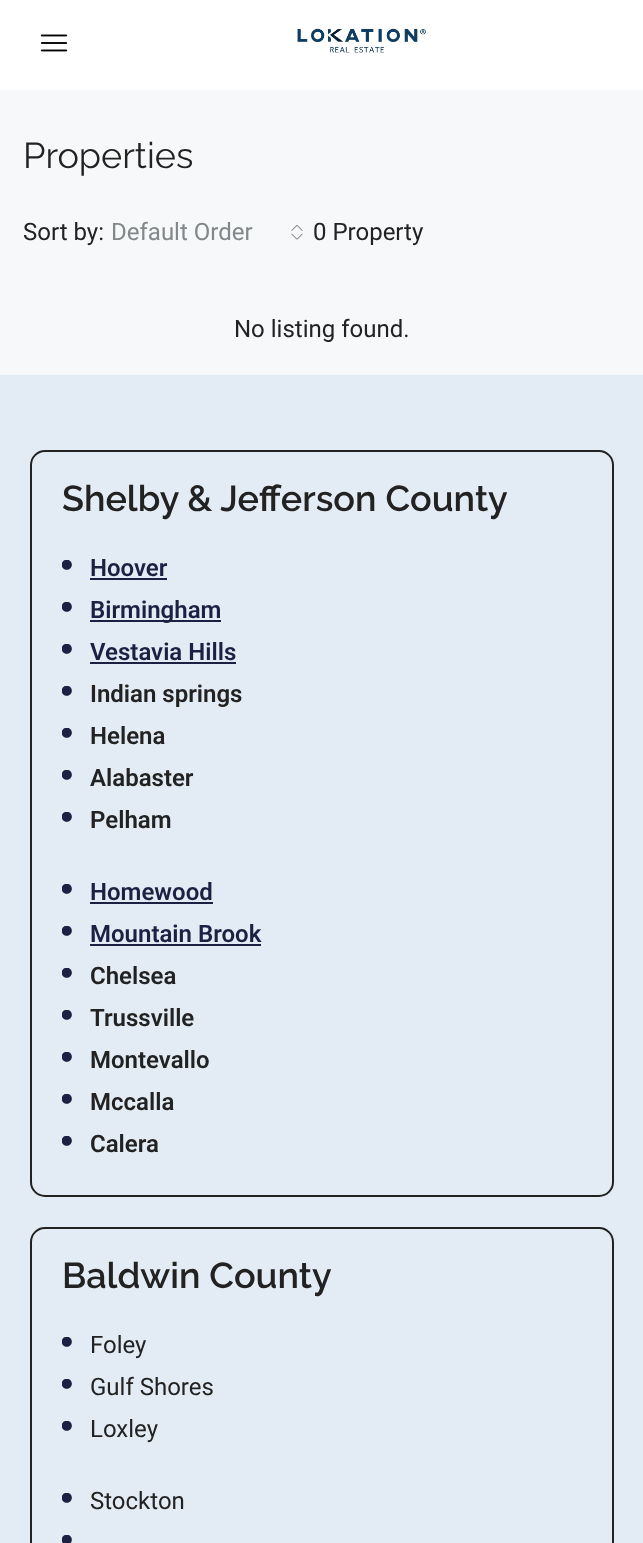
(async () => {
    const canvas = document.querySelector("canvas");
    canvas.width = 643;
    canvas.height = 1543;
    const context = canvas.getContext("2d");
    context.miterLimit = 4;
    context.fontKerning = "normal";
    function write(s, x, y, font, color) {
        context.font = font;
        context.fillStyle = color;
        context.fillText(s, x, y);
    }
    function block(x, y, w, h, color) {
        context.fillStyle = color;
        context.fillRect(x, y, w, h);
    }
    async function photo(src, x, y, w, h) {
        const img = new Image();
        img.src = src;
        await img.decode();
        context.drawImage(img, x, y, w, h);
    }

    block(0, 0, 643, 1543, "rgb(247, 248, 249)");
    block(0, 0, 643, 90, "rgb(255, 255, 255)");
    await photo("media/1.png", 40, 34, 28, 18);
    await photo("media/2.png", 297, 28, 129, 25);
    write("Properties", 23, 168, "36px Raleway", "rgb(34, 34, 34)");
    write("Sort by:", 23, 240, "24px Roboto", "rgb(34, 34, 34)");
    write("Default Order", 111, 240, "24px Roboto", "rgb(130, 135, 137)");
    await photo("media/3.png", 291, 225, 12, 15);
    write("0 Property", 313, 240, "24px Roboto", "rgb(34, 34, 34)");
    write("No listing found.", 234, 337, "24px Roboto", "rgb(34, 34, 34)");
    block(0, 375, 643, 1168, "rgb(227, 236, 244)");
    context.beginPath();
    context.roundRect(31, 451, 582, 745, 14);
    context.strokeStyle = "rgb(34, 34, 34)";
    context.lineWidth = 2;
    context.stroke();
    write("Shelby & Jefferson County", 62, 511, "600 36px Raleway", "rgb(34, 34, 34)");
    await photo("media/4.png", 62, 560, 10, 10);
    write("Hoover", 90, 576, "600 24px Roboto", "rgb(28, 33, 67)");
    block(90, 578, 77, 2, "rgb(28, 33, 67)");
    await photo("media/4.png", 62, 602, 10, 10);
    block(90, 620, 131, 2, "rgb(28, 33, 67)");
    write("Birmingham", 90, 618, "600 24px Roboto", "rgb(28, 33, 67)");
    await photo("media/4.png", 62, 644, 10, 10);
    write("Vestavia Hills", 90, 660, "600 24px Roboto", "rgb(28, 33, 67)");
    block(90, 662, 146, 2, "rgb(28, 33, 67)");
    await photo("media/4.png", 62, 686, 10, 10);
    write("Indian springs", 90, 702, "600 24px Roboto", "rgb(34, 34, 34)");
    await photo("media/4.png", 62, 728, 10, 10);
    write("Helena", 90, 744, "600 24px Roboto", "rgb(34, 34, 34)");
    await photo("media/4.png", 62, 770, 10, 10);
    write("Alabaster", 90, 786, "600 24px Roboto", "rgb(34, 34, 34)");
    await photo("media/4.png", 62, 812, 10, 10);
    write("Pelham", 90, 828, "600 24px Roboto", "rgb(34, 34, 34)");
    await photo("media/4.png", 62, 884, 10, 10);
    write("Homewood", 90, 900, "600 24px Roboto", "rgb(28, 33, 67)");
    block(90, 902, 123, 2, "rgb(28, 33, 67)");
    await photo("media/4.png", 62, 926, 10, 10);
    write("Mountain Brook", 90, 942, "600 24px Roboto", "rgb(28, 33, 67)");
    block(90, 944, 171, 2, "rgb(28, 33, 67)");
    await photo("media/4.png", 62, 968, 10, 10);
    write("Chelsea", 90, 984, "600 24px Roboto", "rgb(34, 34, 34)");
    await photo("media/4.png", 62, 1010, 10, 10);
    write("Trussville", 90, 1026, "600 24px Roboto", "rgb(34, 34, 34)");
    await photo("media/4.png", 62, 1052, 10, 10);
    write("Montevallo", 90, 1068, "600 24px Roboto", "rgb(34, 34, 34)");
    await photo("media/4.png", 62, 1094, 10, 10);
    write("Mccalla", 90, 1110, "600 24px Roboto", "rgb(34, 34, 34)");
    await photo("media/4.png", 62, 1136, 10, 10);
    write("Calera", 90, 1152, "600 24px Roboto", "rgb(34, 34, 34)");
    context.beginPath();
    context.roundRect(31, 1228, 582, 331, 14);
    context.stroke();
    write("Baldwin County", 62, 1288, "600 36px Raleway", "rgb(34, 34, 34)");
    await photo("media/4.png", 62, 1337, 10, 10);
    write("Foley", 90, 1353, "24px Roboto", "rgb(34, 34, 34)");
    await photo("media/4.png", 62, 1379, 10, 10);
    write("Gulf Shores", 90, 1395, "24px Roboto", "rgb(34, 34, 34)");
    await photo("media/4.png", 62, 1421, 10, 10);
    write("Loxley", 90, 1437, "24px Roboto", "rgb(34, 34, 34)");
    await photo("media/4.png", 62, 1493, 10, 10);
    write("Stockton", 90, 1509, "24px Roboto", "rgb(34, 34, 34)");
    await photo("media/5.png", 62, 1535, 10, 8);
})();
